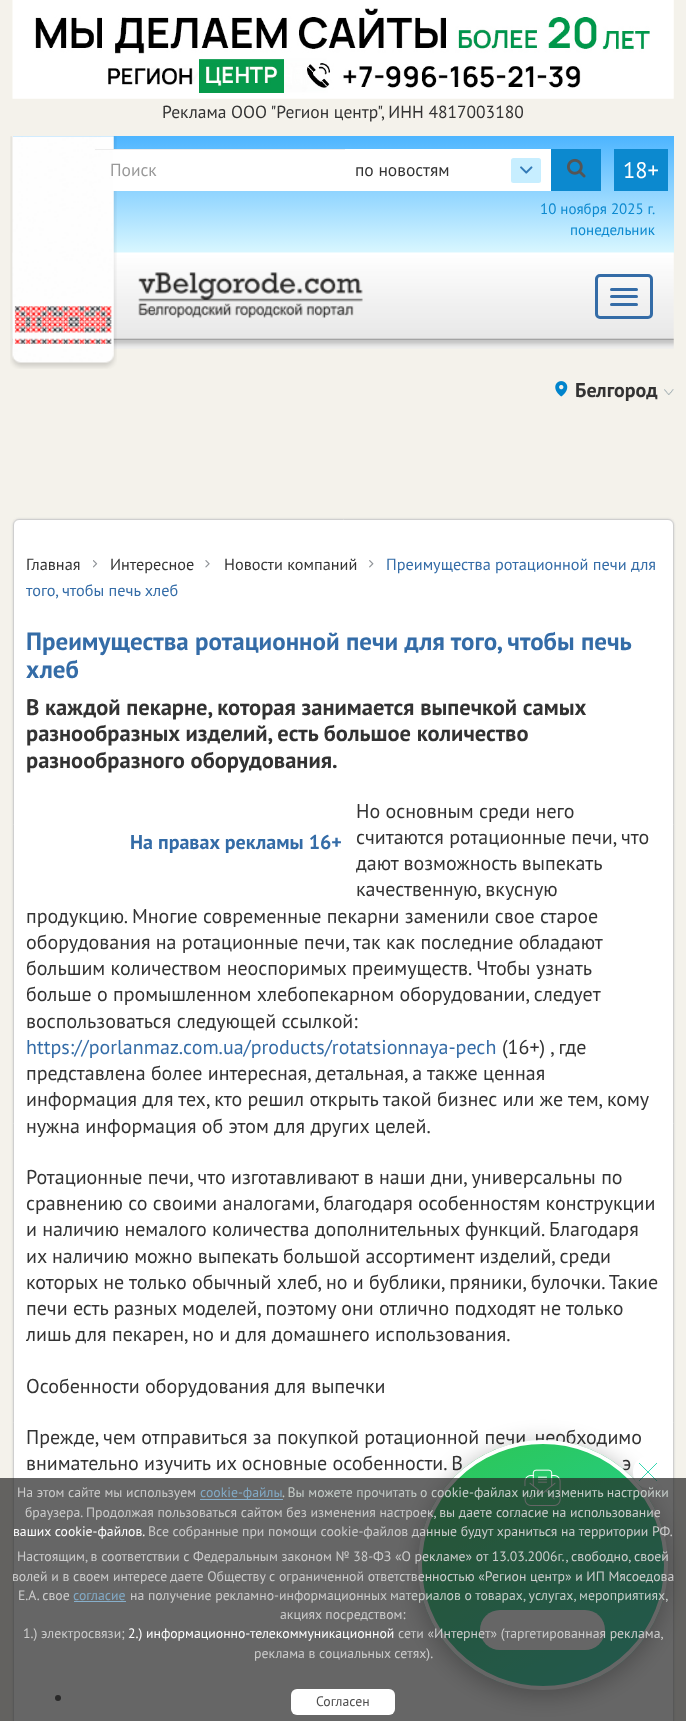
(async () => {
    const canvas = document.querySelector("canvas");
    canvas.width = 686;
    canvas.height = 1721;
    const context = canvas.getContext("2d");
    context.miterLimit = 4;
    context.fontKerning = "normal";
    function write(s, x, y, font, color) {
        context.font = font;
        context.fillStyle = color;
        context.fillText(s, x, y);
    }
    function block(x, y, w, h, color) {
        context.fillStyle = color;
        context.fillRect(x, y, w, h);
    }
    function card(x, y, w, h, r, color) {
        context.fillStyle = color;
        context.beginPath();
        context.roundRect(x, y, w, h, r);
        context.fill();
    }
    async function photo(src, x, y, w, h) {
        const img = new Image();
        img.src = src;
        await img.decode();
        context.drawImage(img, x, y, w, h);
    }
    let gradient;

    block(0, 0, 686, 1721, "rgb(244, 242, 235)");
    await photo("media/1.png", 12, 0, 662, 99);
    write("Реклама ООО \"Регион центр\", ИНН 4817003180", 162, 118, "17.5px PT Sans", "rgb(51, 51, 51)");
    gradient = context.createLinearGradient(343, 136, 343, 253);
    gradient.addColorStop(0, "rgb(77, 181, 255)");
    gradient.addColorStop(1, "rgb(217, 247, 255)");
    context.fillStyle = gradient;
    context.fillRect(13, 136, 661, 117);
    await photo("media/5.png", 12, 252, 662, 97);
    await photo("media/2.png", 10, 136, 107, 233);
    block(113, 150, 232, 41, "rgb(255, 255, 255)");
    block(95, 149, 250, 1, "rgb(236, 236, 236)");
    write("Поиск", 110, 176, "17.5px PT Sans", "rgb(153, 153, 153)");
    block(345, 149, 206, 42, "rgb(255, 255, 255)");
    write("по новостям", 355, 176, "17.5px PT Sans", "rgb(51, 51, 51)");
    card(511, 158, 30, 25, 2.5, "rgb(199, 238, 255)");
    await photo("media/3.png", 520, 166, 13, 8);
    block(551, 149, 50, 42, "rgb(12, 137, 207)");
    await photo("media/4.png", 567, 158, 19, 20);
    block(614, 149, 54, 42, "rgb(12, 137, 207)");
    write("18+", 623, 178, "22.5px PT Sans", "rgb(255, 255, 255)");
    write("10 ноября 2025 г.", 540, 214, "15px PT Sans", "rgb(12, 137, 207)");
    write("понедельник", 570, 235, "15px PT Sans", "rgb(12, 137, 207)");
    await photo("media/6.png", 138, 272, 225, 46);
    context.beginPath();
    context.roundRect(596.5, 275.5, 55, 42, 3.5);
    context.strokeStyle = "rgb(52, 108, 167)";
    context.lineWidth = 3;
    context.stroke();
    card(610, 288, 28, 3, 1.5, "rgb(52, 108, 167)");
    card(610, 295, 28, 3, 1.5, "rgb(52, 108, 167)");
    card(610, 303, 28, 3, 1.5, "rgb(52, 108, 167)");
    await photo("media/7.png", 555, 381, 13, 16);
    write("Белгород", 575, 397, "bold 20px PT Sans", "rgb(51, 51, 51)");
    await photo("media/8.png", 664, 389, 10, 6);
    context.fillStyle = "rgb(207, 207, 207)";
    context.filter = "blur(1px)";
    context.beginPath();
    context.roundRect(13, 519, 661, 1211, 6);
    context.fill();
    context.filter = "none";
    context.fillStyle = "rgb(255, 255, 255)";
    context.beginPath();
    context.roundRect(13.5, 519.5, 660, 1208, 5.5);
    context.fill();
    context.strokeStyle = "rgb(207, 207, 207)";
    context.lineWidth = 1;
    context.stroke();
    write("Главная", 26, 570, "16.25px PT Sans", "rgb(51, 51, 51)");
    await photo("media/9.png", 93, 560, 5, 8);
    write("Интересное", 110, 570, "16.25px PT Sans", "rgb(51, 51, 51)");
    await photo("media/10.png", 205, 560, 5, 8);
    write("Новости компаний", 224, 570, "16.25px PT Sans", "rgb(51, 51, 51)");
    await photo("media/11.png", 369, 560, 5, 8);
    write("Преимущества ротационной печи для", 386, 570, "16.25px PT Sans", "rgb(52, 108, 167)");
    write("того, чтобы печь хлеб", 26, 596, "16.25px PT Sans", "rgb(52, 108, 167)");
    write("Преимущества ротационной печи для того, чтобы печь", 26, 650, "bold 25px PT Sans", "rgb(52, 108, 167)");
    write("хлеб", 26, 678, "bold 25px PT Sans", "rgb(52, 108, 167)");
    write("В каждой пекарне, которая занимается выпечкой самых", 26, 715, "bold 22.5px PT Sans", "rgb(51, 51, 51)");
    write("разнообразных изделий, есть большое количество", 26, 741, "bold 22.5px PT Sans", "rgb(51, 51, 51)");
    write("разнообразного оборудования.", 26, 768, "bold 22.5px PT Sans", "rgb(51, 51, 51)");
    write("Но основным среди него", 356, 818, "20px PT Sans", "rgb(51, 51, 51)");
    write("считаются ротационные печи, что", 356, 844, "20px PT Sans", "rgb(51, 51, 51)");
    write("дают возможность выпекать", 356, 870, "20px PT Sans", "rgb(51, 51, 51)");
    write("качественную, вкусную", 356, 896, "20px PT Sans", "rgb(51, 51, 51)");
    write("продукцию. Многие современные пекарни заменили свое старое", 26, 923, "20px PT Sans", "rgb(51, 51, 51)");
    write("оборудования на ротационные печи, так как последние обладают", 26, 949, "20px PT Sans", "rgb(51, 51, 51)");
    write("большим количеством неоспоримых преимуществ. Чтобы узнать", 26, 975, "20px PT Sans", "rgb(51, 51, 51)");
    write("больше о промышленном хлебопекарном оборудовании, следует", 26, 1001, "20px PT Sans", "rgb(51, 51, 51)");
    write("воспользоваться следующей ссылкой:", 26, 1028, "20px PT Sans", "rgb(51, 51, 51)");
    write("https://porlanmaz.com.ua/products/rotatsionnaya-pech", 26, 1054, "20px PT Sans", "rgb(52, 108, 167)");
    write("(16+) , где", 502, 1054, "20px PT Sans", "rgb(51, 51, 51)");
    write("представлена более интересная, детальная, а также ценная", 26, 1080, "20px PT Sans", "rgb(51, 51, 51)");
    write("информация для тех, кто решил открыть такой бизнес или же тем, кому", 26, 1106, "20px PT Sans", "rgb(51, 51, 51)");
    write("нужна информация об этом для других целей.", 26, 1133, "20px PT Sans", "rgb(51, 51, 51)");
    write("Ротационные печи, что изготавливают в наши дни, универсальны по", 26, 1184, "20px PT Sans", "rgb(51, 51, 51)");
    write("сравнению со своими аналогами, благодаря особенностям конструкции", 26, 1210, "20px PT Sans", "rgb(51, 51, 51)");
    write("и наличию немалого количества дополнительных функций. Благодаря", 26, 1236, "20px PT Sans", "rgb(51, 51, 51)");
    write("их наличию можно выпекать большой ассортимент изделий, среди", 26, 1263, "20px PT Sans", "rgb(51, 51, 51)");
    write("которых не только обычный хлеб, но и бублики, пряники, булочки. Такие", 26, 1289, "20px PT Sans", "rgb(51, 51, 51)");
    write("печи есть разных моделей, поэтому они отлично подходят не только", 26, 1315, "20px PT Sans", "rgb(51, 51, 51)");
    write("лишь для пекарен, но и для домашнего использования.", 26, 1341, "20px PT Sans", "rgb(51, 51, 51)");
    write("Особенности оборудования для выпечки", 26, 1393, "20px PT Sans", "rgb(51, 51, 51)");
    write("Прежде, чем отправиться за покупкой ротационной печи, необходимо", 26, 1444, "20px PT Sans", "rgb(51, 51, 51)");
    write("внимательно изучить их основные особенности. В", 26, 1470, "20px PT Sans", "rgb(51, 51, 51)");
    write("э", 622, 1470, "20px PT Sans", "rgb(51, 51, 51)");
    context.beginPath();
    context.arc(58, 1698, 3, 0, Math.PI * 2);
    context.fill();
    write("На правах рекламы 16+", 130, 849, "bold 20px PT Sans", "rgb(52, 108, 167)");
    context.fillStyle = "rgba(0, 0, 0, 0.35)";
    context.filter = "blur(12.5px)";
    context.beginPath();
    context.roundRect(418, 1446, 250, 250, 125);
    context.fill();
    context.filter = "none";
    context.save();
    context.beginPath();
    context.roundRect(418, 1440, 250, 250, 125);
    context.clip();
    gradient = context.createLinearGradient(622, 1709, 463, 1421);
    gradient.addColorStop(0, "rgb(29, 211, 176)");
    gradient.addColorStop(0.99, "rgb(45, 198, 83)");
    context.fillStyle = gradient;
    context.fillRect(421, 1444, 243, 242);
    context.restore();
    context.beginPath();
    context.arc(543, 1565, 123, 0, Math.PI * 2);
    context.strokeStyle = "rgb(255, 255, 255)";
    context.lineWidth = 4;
    context.stroke();
    await photo("media/12.png", 524, 1469, 37, 37);
    card(633, 1456, 31, 32, 15.5, "rgb(255, 255, 255)");
    context.save();
    context.beginPath();
    context.rect(639, 1463, 19, 18);
    context.clip();
    context.beginPath();
    context.moveTo(639, 1481);
    context.lineTo(657, 1463);
    context.moveTo(639, 1463);
    context.lineTo(657, 1481);
    context.strokeStyle = "rgb(30, 210, 168)";
    context.lineWidth = 0.9;
    context.lineCap = "round";
    context.lineJoin = "round";
    context.stroke();
    context.restore();
    card(480, 1610, 125, 40, 20, "rgb(255, 255, 255)");
    block(0, 1478, 686, 243, "rgba(37, 37, 37, 0.7)");
    write("На этом сайте мы используем", 17, 1497, "13.75px PT Sans", "rgb(204, 204, 204)");
    block(200, 1499, 83, 1, "rgba(149, 206, 246, 0.7)");
    write("cookie-файлы", 200, 1497, "13.75px PT Sans", "rgb(130, 170, 198)");
    write(". Вы можете прочитать о cookie-файлах или изменить настройки", 282, 1497, "13.75px PT Sans", "rgb(197, 205, 201)");
    write("браузера.", 25, 1517, "13.75px PT Sans", "rgb(204, 204, 204)");
    write("Продолжая пользоваться сайтом без изменения настроек, вы даете согласие на использование", 86, 1517, "13.75px PT Sans", "rgb(204, 204, 204)");
    write("ваших cookie-файлов.", 13, 1536, "13.75px PT Sans", "rgb(255, 255, 255)");
    write("Все собранные при помощи cookie-файлов данные будут храниться на территории РФ.", 148, 1536, "13.75px PT Sans", "rgb(204, 204, 204)");
    write("Настоящим, в соответствии с Федеральным законом № 38-ФЗ «О рекламе» от 13.03.2006г., свободно, своей", 17, 1561, "13.75px PT Sans", "rgb(204, 204, 204)");
    write("волей и в своем интересе", 12, 1581, "13.75px PT Sans", "rgb(204, 204, 204)");
    write("даете Обществу с ограниченной ответственностью «Регион центр» и ИП Мясоедова", 170, 1581, "13.75px PT Sans", "rgb(204, 204, 204)");
    write("Е.А. свое", 18, 1600, "13.75px PT Sans", "rgb(204, 204, 204)");
    write("согласие", 73, 1600, "13.75px PT Sans", "rgb(130, 170, 198)");
    block(74, 1601, 52, 1, "rgba(149, 206, 246, 0.7)");
    write("на получение рекламно-информационных", 130, 1600, "13.75px PT Sans", "rgb(204, 204, 204)");
    write("материалов о товарах, услугах, мероприятиях,", 390, 1600, "13.75px PT Sans", "rgb(197, 205, 201)");
    write("акциях посредством:", 280, 1619, "13.75px PT Sans", "rgb(204, 204, 204)");
    write("1.) электросвязи;", 23, 1638, "13.75px PT Sans", "rgb(204, 204, 204)");
    write("2.) информационно-телекоммуникационной", 128, 1638, "13.75px PT Sans", "rgb(255, 255, 255)");
    write("сети «Интернет» (таргетированная реклама,", 398, 1638, "13.75px PT Sans", "rgb(204, 204, 204)");
    write("реклама в социальных сетях).", 254, 1658, "13.75px PT Sans", "rgb(204, 204, 204)");
    card(291, 1689, 104, 26, 6, "rgb(255, 255, 255)");
    write("Согласен", 316, 1706, "13.75px PT Sans", "rgb(77, 77, 77)");
})();
